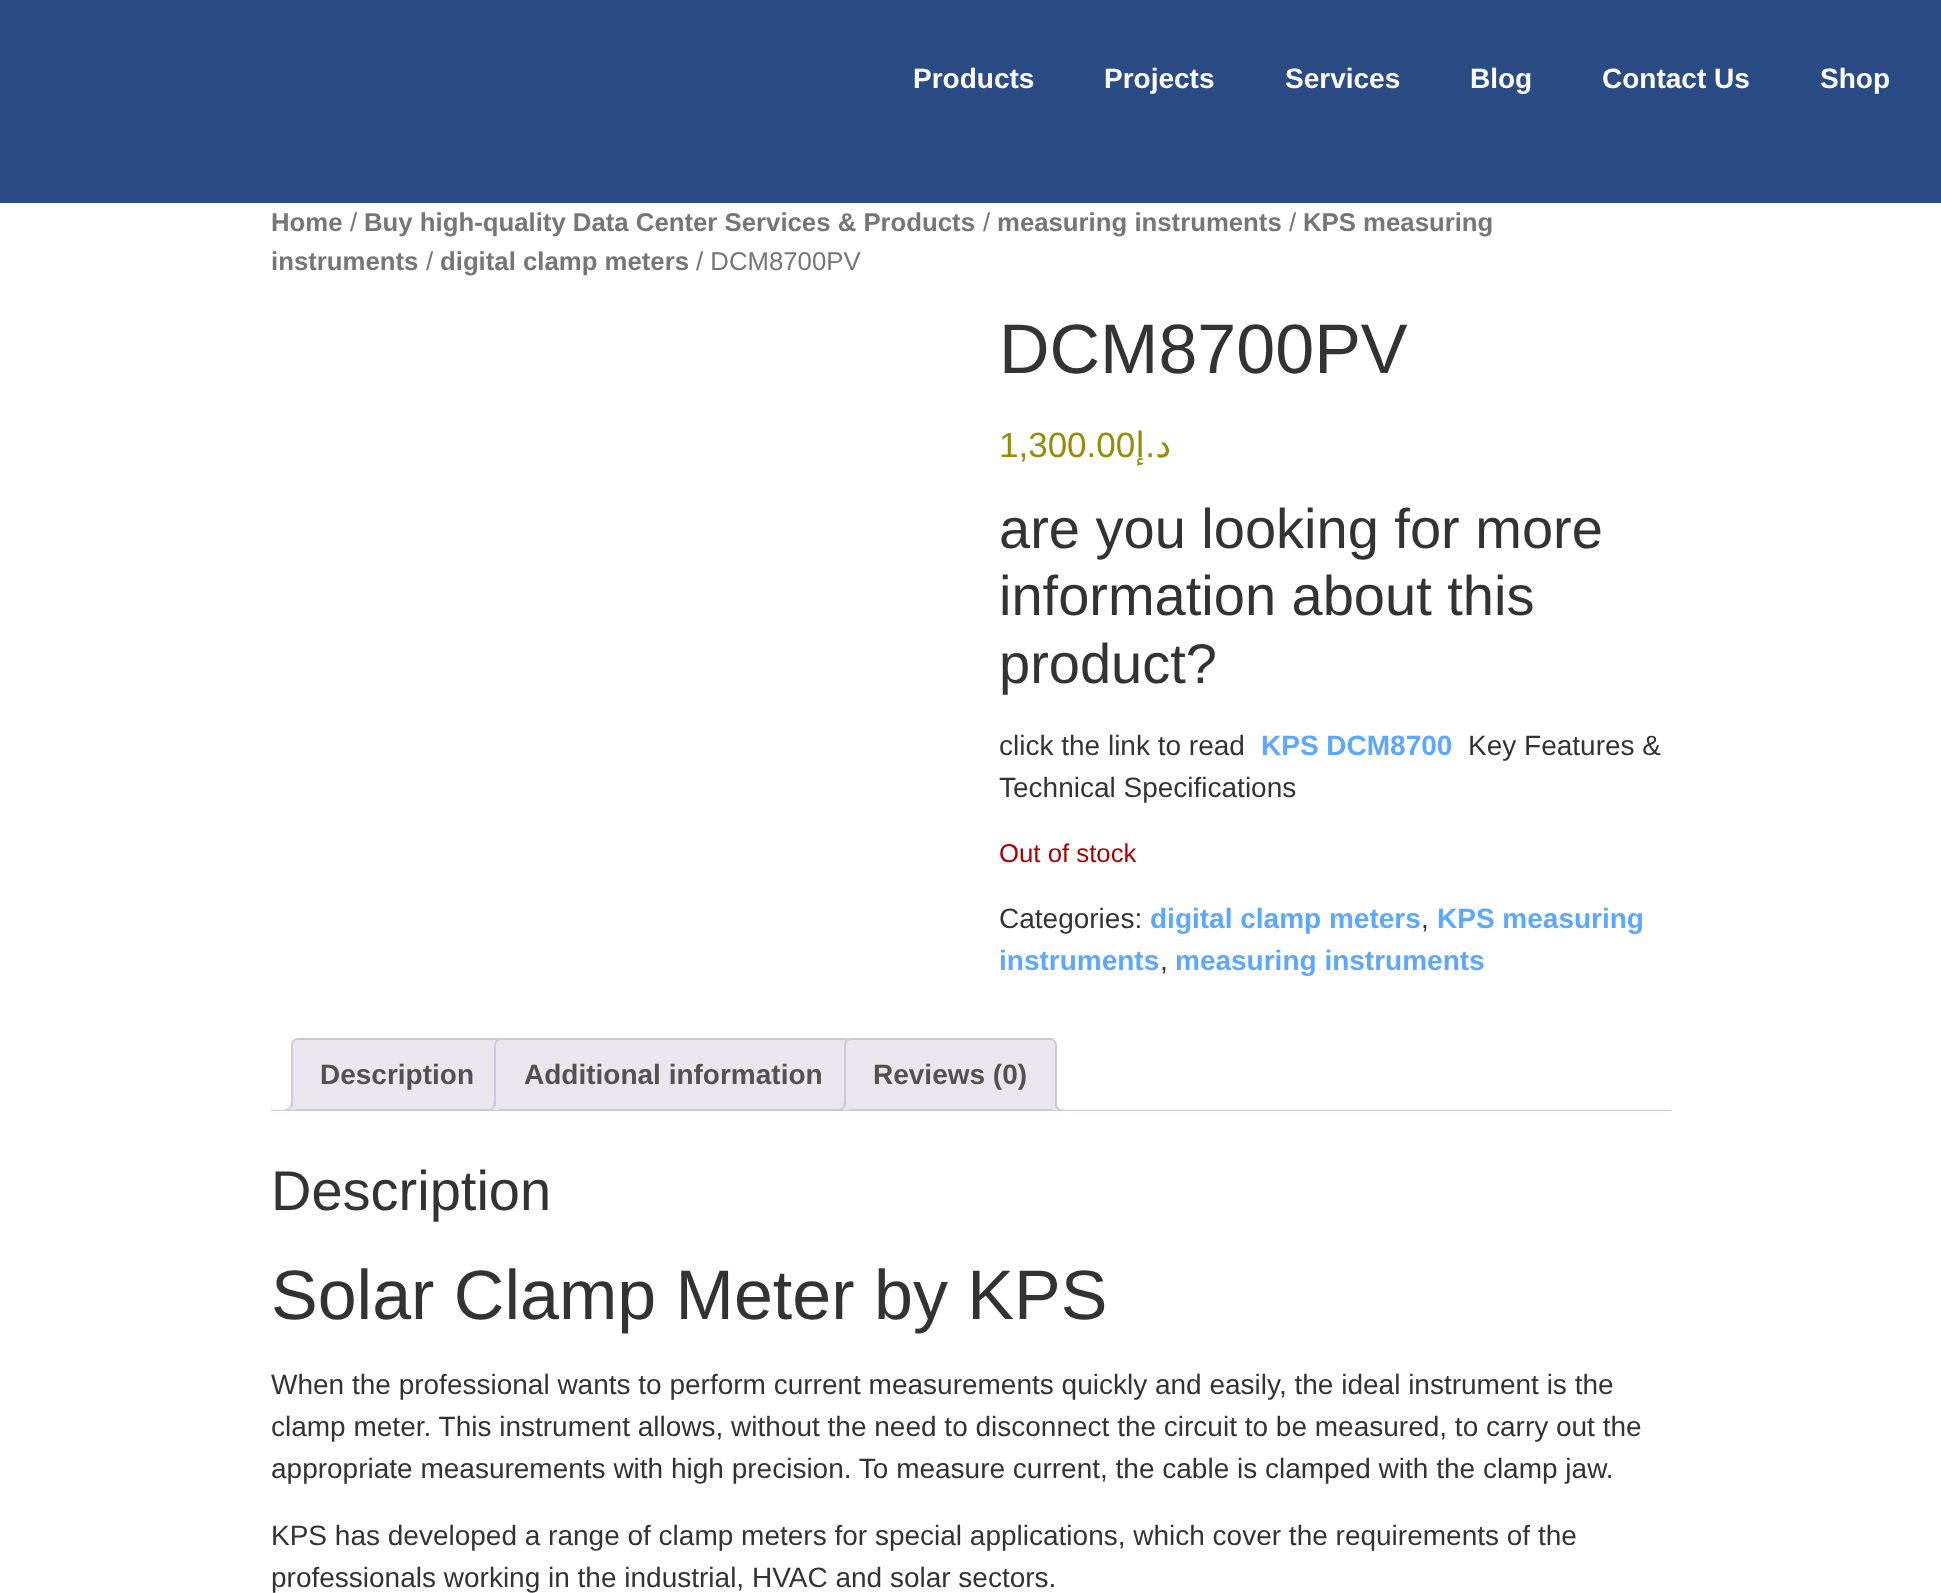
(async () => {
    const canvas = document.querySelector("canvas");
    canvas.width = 1941;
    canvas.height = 1593;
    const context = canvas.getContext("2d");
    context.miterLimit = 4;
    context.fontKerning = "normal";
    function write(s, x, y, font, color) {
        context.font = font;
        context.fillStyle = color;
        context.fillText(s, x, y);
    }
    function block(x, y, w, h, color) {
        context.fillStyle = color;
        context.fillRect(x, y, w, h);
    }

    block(0, 0, 1941, 1593, "rgb(255, 255, 255)");
    block(0, 0, 1941, 203, "rgb(42, 75, 131)");
    write("Products", 913, 88, "bold 28px Liberation Sans", "rgb(255, 255, 255)");
    write("Projects", 1104, 88, "bold 28px Liberation Sans", "rgb(255, 255, 255)");
    write("Services", 1285, 88, "bold 28px Liberation Sans", "rgb(255, 255, 255)");
    write("Blog", 1470, 88, "bold 28px Liberation Sans", "rgb(255, 255, 255)");
    write("Contact Us", 1602, 88, "bold 28px Liberation Sans", "rgb(255, 255, 255)");
    write("Shop", 1820, 88, "bold 28px Liberation Sans", "rgb(255, 255, 255)");
    write("Home", 271, 231, "bold 25.75px Liberation Sans", "rgb(118, 118, 118)");
    write("/", 350, 231, "25.75px Liberation Sans", "rgb(118, 118, 118)");
    write("Buy high-quality Data Center Services & Products", 364, 231, "bold 25.75px Liberation Sans", "rgb(118, 118, 118)");
    write("/", 983, 231, "25.75px Liberation Sans", "rgb(118, 118, 118)");
    write("measuring instruments", 997, 231, "bold 25.75px Liberation Sans", "rgb(118, 118, 118)");
    write("/", 1289, 231, "25.75px Liberation Sans", "rgb(118, 118, 118)");
    write("KPS measuring", 1303, 231, "bold 25.75px Liberation Sans", "rgb(118, 118, 118)");
    write("instruments", 271, 270, "bold 25.75px Liberation Sans", "rgb(118, 118, 118)");
    write("/", 426, 270, "25.75px Liberation Sans", "rgb(118, 118, 118)");
    write("digital clamp meters", 440, 270, "bold 25.75px Liberation Sans", "rgb(118, 118, 118)");
    write("/ DCM8700PV", 696, 270, "25.75px Liberation Sans", "rgb(118, 118, 118)");
    write("DCM8700PV", 999, 373, "70px Liberation Sans", "rgb(51, 51, 51)");
    write("1,300.00", 999, 457, "35px Liberation Sans", "rgb(149, 142, 9)");
    context.direction = "rtl";
    write("إ", 1145, 457, "35px DejaVu Sans", "rgb(149, 142, 9)");
    write(".", 1155, 457, "35px Liberation Sans", "rgb(149, 142, 9)");
    write("د", 1171, 457, "35px DejaVu Sans", "rgb(149, 142, 9)");
    context.direction = "ltr";
    write("are you looking for more", 999, 548, "56px Liberation Sans", "rgb(51, 51, 51)");
    write("information about this", 999, 615, "56px Liberation Sans", "rgb(51, 51, 51)");
    write("product?", 999, 683, "56px Liberation Sans", "rgb(51, 51, 51)");
    write("click the link to read", 999, 755, "28px Liberation Sans", "rgb(51, 51, 51)");
    write("KPS DCM8700", 1261, 755, "bold 28px Liberation Sans", "rgb(92, 167, 255)");
    write("Key Features &", 1468, 755, "28px Liberation Sans", "rgb(51, 51, 51)");
    write("Technical Specifications", 999, 797, "28px Liberation Sans", "rgb(51, 51, 51)");
    write("Out of stock", 999, 862, "25.75px Liberation Sans", "rgb(170, 0, 0)");
    write("Categories:", 999, 928, "28px Liberation Sans", "rgb(51, 51, 51)");
    write("digital clamp meters", 1150, 928, "bold 28px Liberation Sans", "rgb(92, 167, 255)");
    write(",", 1421, 928, "28px Liberation Sans", "rgb(51, 51, 51)");
    write("KPS measuring", 1437, 928, "bold 28px Liberation Sans", "rgb(92, 167, 255)");
    write("instruments", 999, 970, "bold 28px Liberation Sans", "rgb(92, 167, 255)");
    write(",", 1160, 970, "28px Liberation Sans", "rgb(51, 51, 51)");
    write("measuring instruments", 1175, 970, "bold 28px Liberation Sans", "rgb(92, 167, 255)");
    context.fillStyle = "rgb(233, 230, 237)";
    context.beginPath();
    context.roundRect(292, 1039, 211, 71, [6, 6, 0, 0]);
    context.fill();
    context.strokeStyle = "rgb(207, 200, 216)";
    context.lineWidth = 2;
    context.stroke();
    write("Description", 320, 1084, "bold 28px Liberation Sans", "rgb(81, 81, 81)");
    context.save();
    context.beginPath();
    context.rect(271, 1038, 1400, 73);
    context.clip();
    context.fillStyle = "rgb(233, 230, 237)";
    context.beginPath();
    context.moveTo(287, 1111);
    context.lineTo(287, 1115);
    context.bezierCurveTo(293.5, 1115, 296, 1112.5, 296, 1106);
    context.lineTo(292, 1106);
    context.bezierCurveTo(291.5, 1108.5, 289.5, 1110.5, 287, 1111);
    context.closePath();
    context.fill();
    context.restore();
    context.fillStyle = "rgb(207, 200, 216)";
    context.beginPath();
    context.moveTo(283.5, 1102.5);
    context.lineTo(292, 1102.5);
    context.bezierCurveTo(292, 1108.5, 289.5, 1111, 283.5, 1111);
    context.closePath();
    context.moveTo(283.5, 1102.5);
    context.lineTo(290.5, 1102.5);
    context.bezierCurveTo(290.5, 1107.5, 288.5, 1109.5, 283.5, 1109.5);
    context.closePath();
    context.fill("evenodd");
    context.fillStyle = "rgb(233, 230, 237)";
    context.beginPath();
    context.roundRect(495, 1039, 356, 71, [6, 6, 0, 0]);
    context.fill();
    context.stroke();
    write("Additional information", 524, 1084, "bold 28px Liberation Sans", "rgb(81, 81, 81)");
    context.save();
    context.beginPath();
    context.rect(271, 1038, 1400, 73);
    context.clip();
    context.fillStyle = "rgb(233, 230, 237)";
    context.beginPath();
    context.moveTo(490, 1111);
    context.lineTo(490, 1115);
    context.bezierCurveTo(496.5, 1115, 499, 1112.5, 499, 1106);
    context.lineTo(495, 1106);
    context.bezierCurveTo(494.5, 1108.5, 492.5, 1110.5, 490, 1111);
    context.closePath();
    context.fill();
    context.restore();
    context.fillStyle = "rgb(207, 200, 216)";
    context.beginPath();
    context.moveTo(486.5, 1102.5);
    context.lineTo(495, 1102.5);
    context.bezierCurveTo(495, 1108.5, 492.5, 1111, 486.5, 1111);
    context.closePath();
    context.moveTo(486.5, 1102.5);
    context.lineTo(493.5, 1102.5);
    context.bezierCurveTo(493.5, 1107.5, 491.5, 1109.5, 486.5, 1109.5);
    context.closePath();
    context.fill("evenodd");
    context.fillStyle = "rgb(233, 230, 237)";
    context.beginPath();
    context.roundRect(845, 1039, 211, 71, [6, 6, 0, 0]);
    context.fill();
    context.stroke();
    write("Reviews (0)", 873, 1084, "bold 28px Liberation Sans", "rgb(81, 81, 81)");
    context.save();
    context.beginPath();
    context.rect(271, 1038, 1400, 73);
    context.clip();
    context.fillStyle = "rgb(233, 230, 237)";
    context.beginPath();
    context.moveTo(840, 1111);
    context.lineTo(840, 1115);
    context.bezierCurveTo(846.5, 1115, 849, 1112.5, 849, 1106);
    context.lineTo(845, 1106);
    context.bezierCurveTo(844.5, 1108.5, 842.5, 1110.5, 840, 1111);
    context.closePath();
    context.fill();
    context.restore();
    context.fillStyle = "rgb(207, 200, 216)";
    context.beginPath();
    context.moveTo(836.5, 1102.5);
    context.lineTo(845, 1102.5);
    context.bezierCurveTo(845, 1108.5, 842.5, 1111, 836.5, 1111);
    context.closePath();
    context.moveTo(836.5, 1102.5);
    context.lineTo(843.5, 1102.5);
    context.bezierCurveTo(843.5, 1107.5, 841.5, 1109.5, 836.5, 1109.5);
    context.closePath();
    context.fill("evenodd");
    context.save();
    context.beginPath();
    context.rect(271, 1038, 1400, 73);
    context.clip();
    context.fillStyle = "rgb(233, 230, 237)";
    context.beginPath();
    context.moveTo(1052, 1106);
    context.bezierCurveTo(1052, 1112.5, 1054.5, 1115, 1061, 1115);
    context.lineTo(1061, 1111);
    context.bezierCurveTo(1058.5, 1110.5, 1056, 1108.5, 1055.5, 1106);
    context.closePath();
    context.fill();
    context.restore();
    context.beginPath();
    context.moveTo(1055, 1102.5);
    context.lineTo(1064, 1102.5);
    context.lineTo(1064, 1111);
    context.bezierCurveTo(1059.5, 1111, 1055, 1109.5, 1055, 1104);
    context.closePath();
    context.moveTo(1057, 1102.5);
    context.lineTo(1064, 1102.5);
    context.lineTo(1064, 1109.5);
    context.bezierCurveTo(1060.5, 1109.5, 1057, 1108.5, 1057, 1104);
    context.closePath();
    context.fill("evenodd");
    block(271, 1110, 1400, 1, "rgb(207, 200, 216)");
    write("Description", 271, 1210, "56px Liberation Sans", "rgb(51, 51, 51)");
    write("Solar Clamp Meter by KPS", 271, 1319, "70px Liberation Sans", "rgb(51, 51, 51)");
    write("When the professional wants to perform current measurements quickly and easily, the ideal instrument is the", 271, 1394, "28px Liberation Sans", "rgb(51, 51, 51)");
    write("clamp meter. This instrument allows, without the need to disconnect the circuit to be measured, to carry out the", 271, 1436, "28px Liberation Sans", "rgb(51, 51, 51)");
    write("appropriate measurements with high precision. To measure current, the cable is clamped with the clamp jaw.", 271, 1478, "28px Liberation Sans", "rgb(51, 51, 51)");
    write("KPS has developed a range of clamp meters for special applications, which cover the requirements of the", 271, 1545, "28px Liberation Sans", "rgb(51, 51, 51)");
    write("professionals working in the industrial, HVAC and solar sectors.", 271, 1587, "28px Liberation Sans", "rgb(51, 51, 51)");
})();
